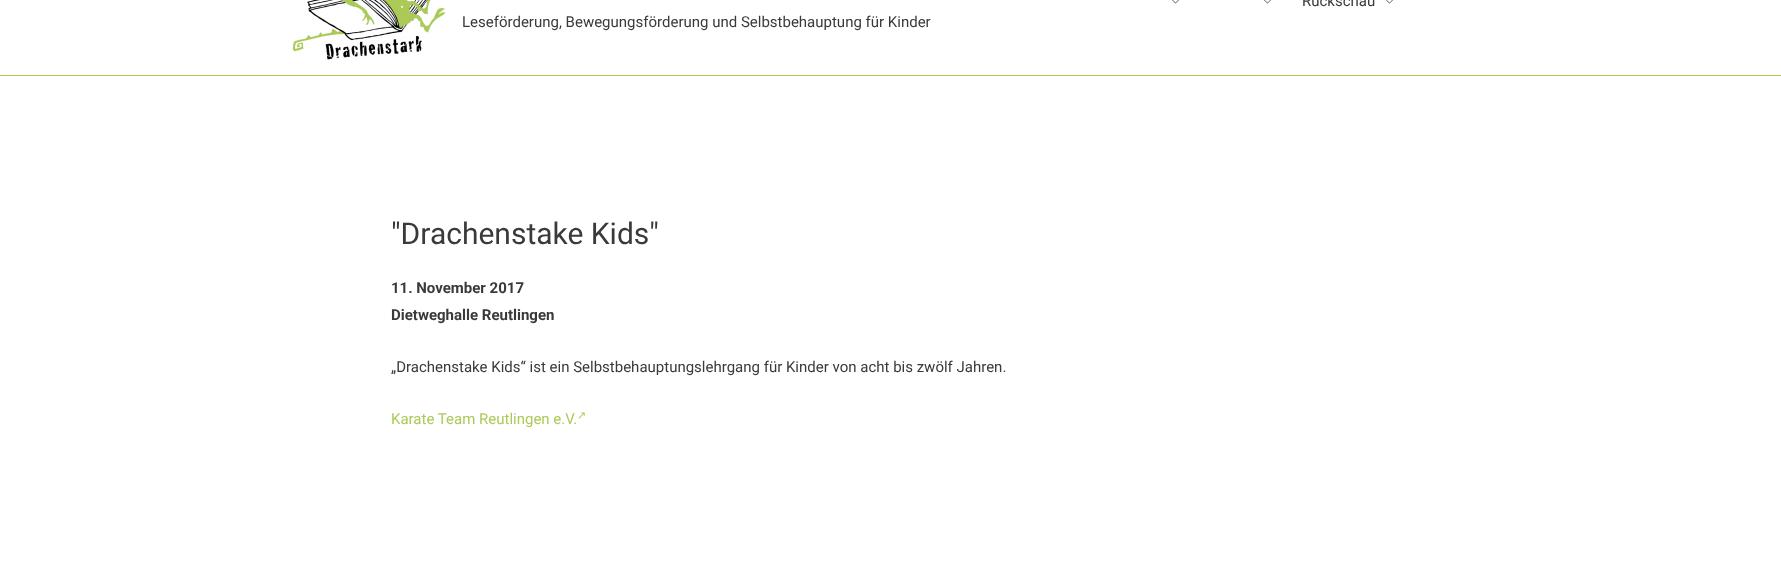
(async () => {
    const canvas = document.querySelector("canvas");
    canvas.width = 1781;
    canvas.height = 566;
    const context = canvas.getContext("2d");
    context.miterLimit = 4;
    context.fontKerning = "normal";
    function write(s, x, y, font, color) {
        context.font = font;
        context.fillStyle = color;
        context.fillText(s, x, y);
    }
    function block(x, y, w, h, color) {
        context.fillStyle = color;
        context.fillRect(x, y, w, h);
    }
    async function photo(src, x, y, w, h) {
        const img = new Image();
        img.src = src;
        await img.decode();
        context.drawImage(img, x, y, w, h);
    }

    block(0, 0, 1781, 566, "rgb(255, 255, 255)");
    block(0, 75, 1781, 1, "rgb(171, 202, 88)");
    await photo("media/1.png", 1172, 0, 7, 4);
    await photo("media/1.png", 1264, 0, 7, 4);
    write("Rückschau", 1302, 6, "15px Roboto", "rgb(58, 58, 58)");
    await photo("media/1.png", 1386, 0, 7, 4);
    await photo("media/2.png", 292, 0, 154, 60);
    write("Leseförderung, Bewegungsförderung und Selbstbehauptung für Kinder", 462, 27, "15px Roboto", "rgb(58, 58, 58)");
    write("\"Drachenstake Kids\"", 391, 244, "30px Roboto", "rgb(58, 58, 58)");
    write("11. November 2017", 391, 293, "bold 15px Roboto", "rgb(58, 58, 58)");
    write("Dietweghalle Reutlingen", 391, 320, "bold 15px Roboto", "rgb(58, 58, 58)");
    write("„Drachenstake Kids“ ist ein Selbstbehauptungslehrgang für Kinder von acht bis zwölf Jahren.", 391, 372, "15px Roboto", "rgb(58, 58, 58)");
    write("Karate Team Reutlingen e.V.", 391, 424, "15px Roboto", "rgb(171, 202, 88)");
    write("↗", 577, 419, "11px DejaVu Sans", "rgb(171, 202, 88)");
})();
